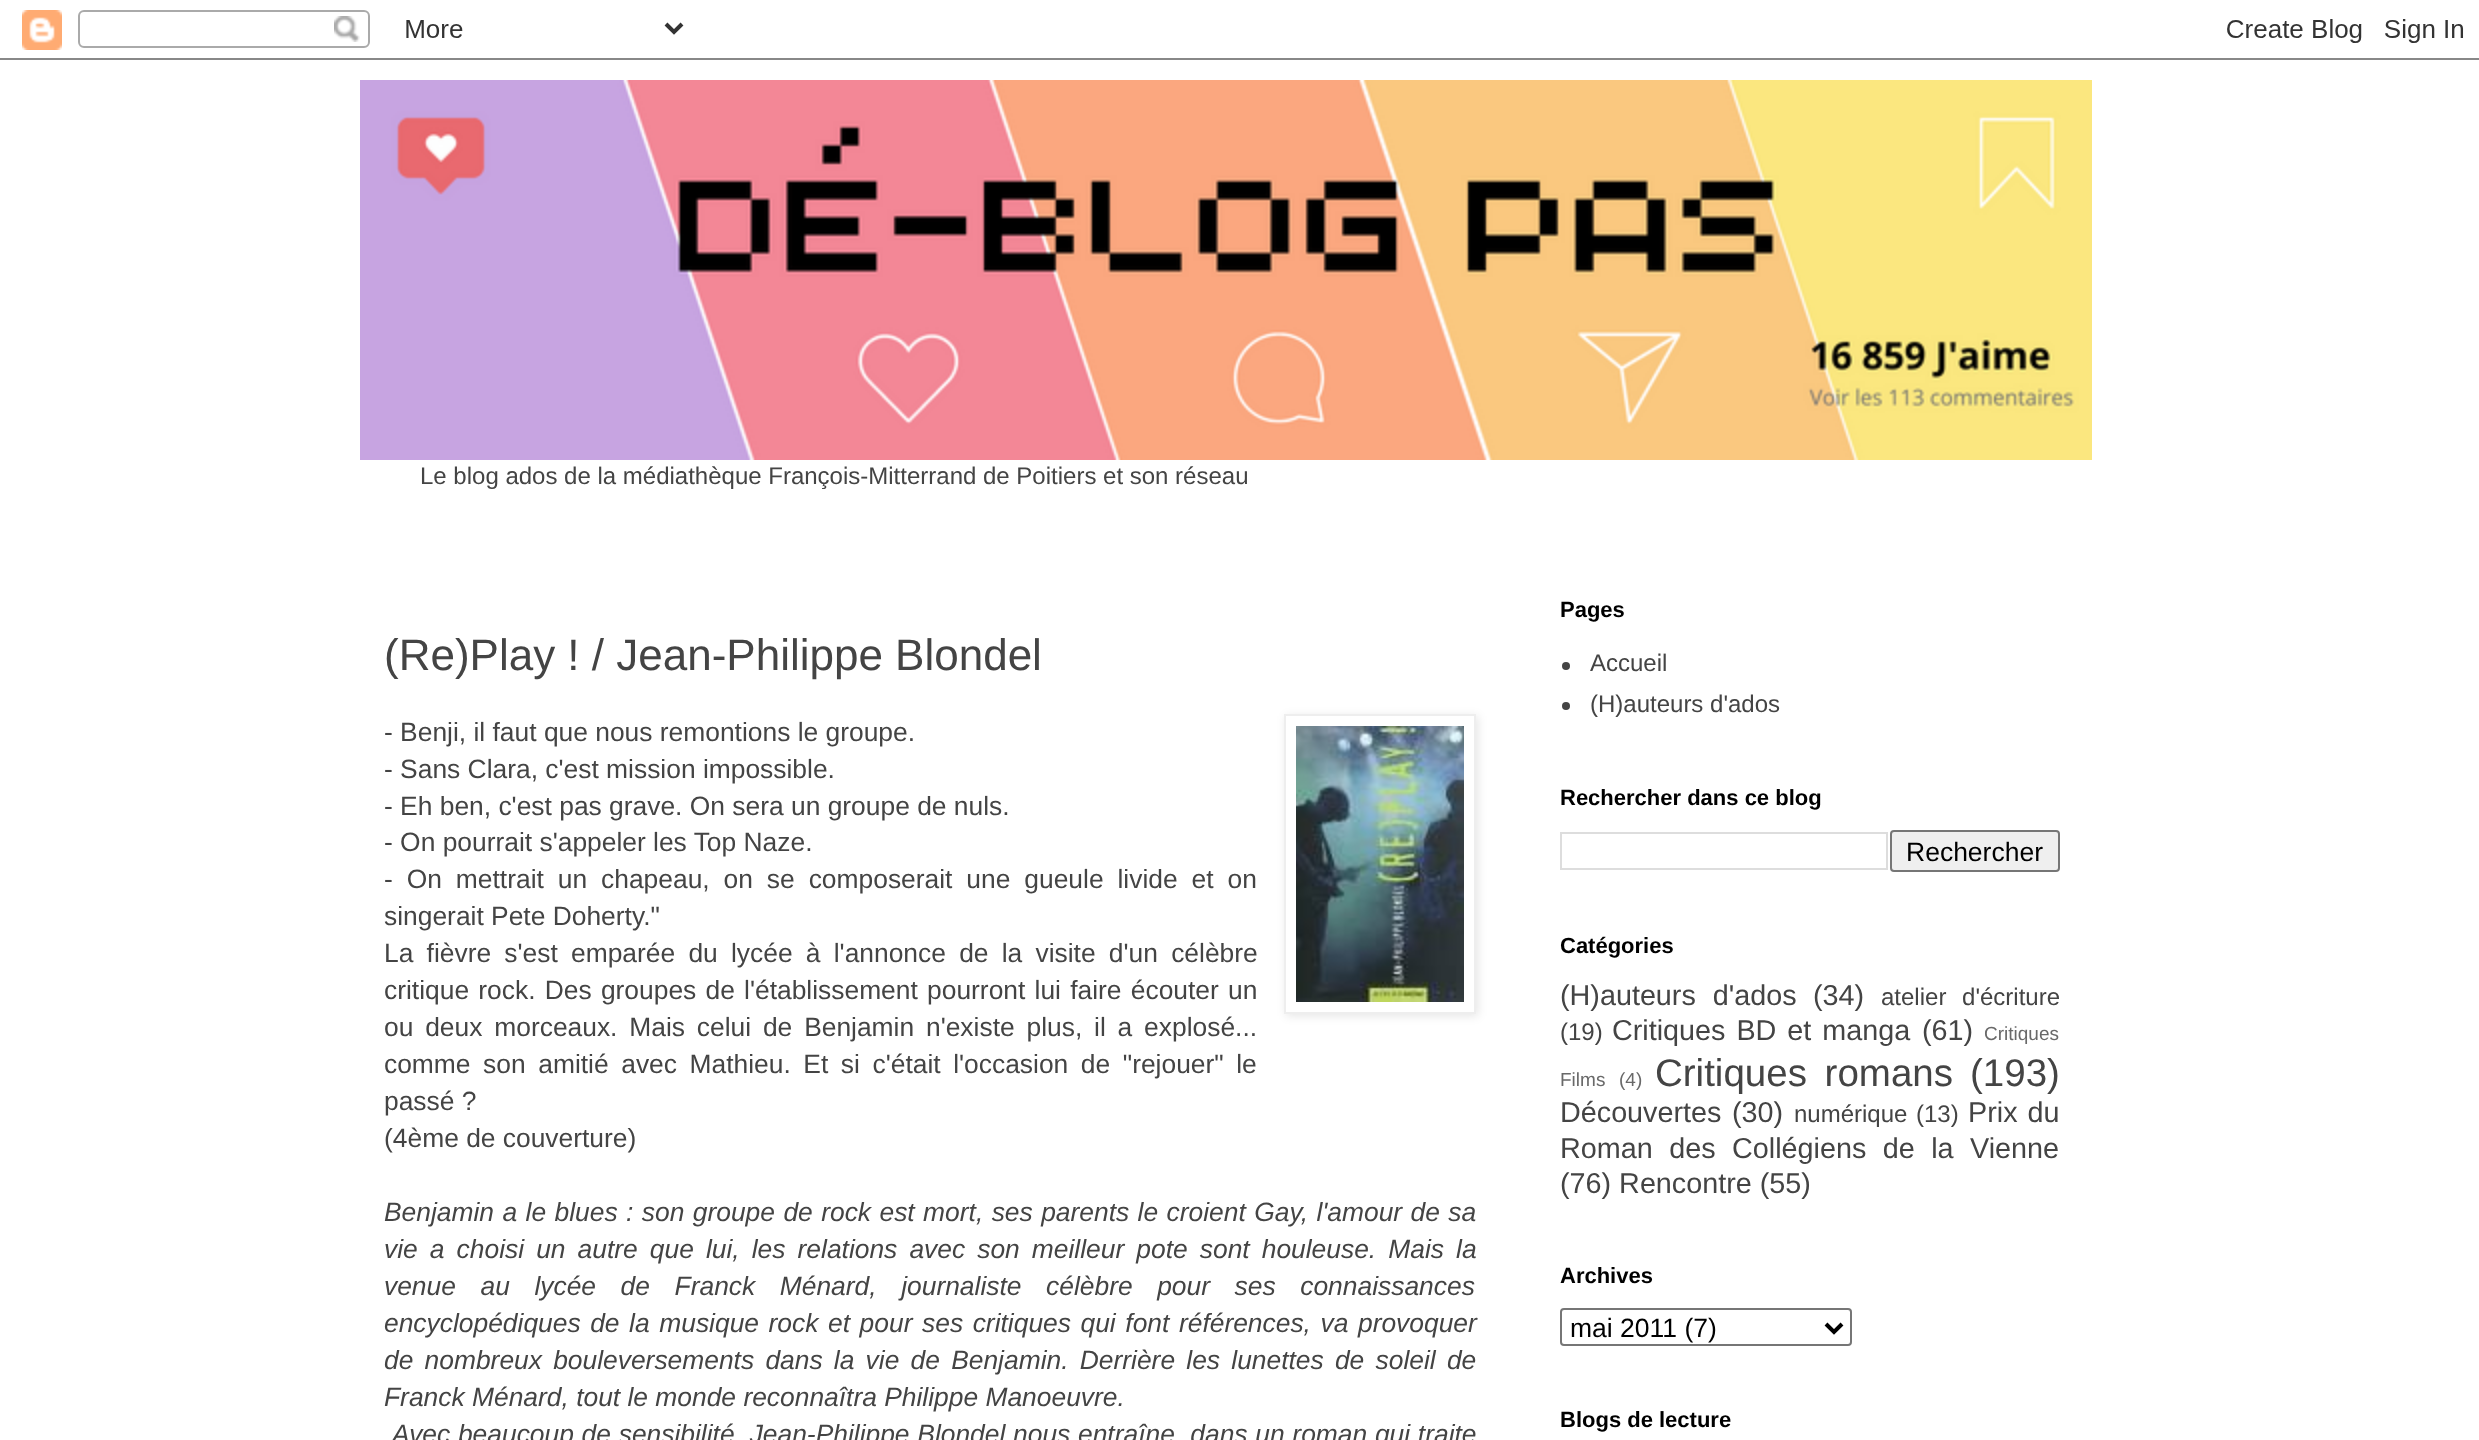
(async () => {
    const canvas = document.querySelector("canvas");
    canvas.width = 2479;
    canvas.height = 1440;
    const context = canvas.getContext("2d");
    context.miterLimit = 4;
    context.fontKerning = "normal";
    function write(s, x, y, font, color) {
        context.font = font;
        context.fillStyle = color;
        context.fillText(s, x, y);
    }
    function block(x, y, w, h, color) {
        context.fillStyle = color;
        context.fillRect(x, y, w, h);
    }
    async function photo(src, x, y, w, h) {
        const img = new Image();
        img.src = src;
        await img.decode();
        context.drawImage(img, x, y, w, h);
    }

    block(0, 0, 2479, 1440, "rgb(255, 255, 255)");
    await photo("media/1.png", 0, 10, 2479, 50);
    await photo("media/2.png", 360, 80, 1732, 380);
    write("Le blog ados de la médiathèque François-Mitterrand de Poitiers et son réseau", 420, 484, "24px Liberation Sans", "rgb(68, 68, 68)");
    write("(Re)Play ! / Jean-Philippe Blondel", 384, 670, "44px Liberation Sans", "rgb(68, 68, 68)");
    write("- Benji, il faut que nous remontions le groupe.", 384, 741, "26.4px Liberation Sans", "rgb(68, 68, 68)");
    write("- Sans Clara, c'est mission impossible.", 384, 778, "26.4px Liberation Sans", "rgb(68, 68, 68)");
    write("- Eh ben, c'est pas grave. On sera un groupe de nuls.", 384, 815, "26.4px Liberation Sans", "rgb(68, 68, 68)");
    write("- On pourrait s'appeler les Top Naze.", 384, 851, "26.4px Liberation Sans", "rgb(68, 68, 68)");
    context.wordSpacing = "6.6px";
    write("- On mettrait un chapeau, on se composerait une gueule livide et on", 384, 888, "26.4px Liberation Sans", "rgb(68, 68, 68)");
    context.wordSpacing = "0px";
    write("singerait Pete Doherty.\"", 384, 925, "26.4px Liberation Sans", "rgb(68, 68, 68)");
    context.wordSpacing = "5.9px";
    write("La fièvre s'est emparée du lycée à l'annonce de la visite d'un célèbre", 384, 962, "26.4px Liberation Sans", "rgb(68, 68, 68)");
    context.wordSpacing = "1.9px";
    write("critique rock. Des groupes de l'établissement pourront lui faire écouter un", 384, 999, "26.4px Liberation Sans", "rgb(68, 68, 68)");
    context.wordSpacing = "4.5px";
    write("ou deux morceaux. Mais celui de Benjamin n'existe plus, il a explosé...", 384, 1036, "26.4px Liberation Sans", "rgb(68, 68, 68)");
    context.wordSpacing = "5.25px";
    write("comme son amitié avec Mathieu. Et si c'était l'occasion de \"rejouer\" le", 384, 1073, "26.4px Liberation Sans", "rgb(68, 68, 68)");
    context.wordSpacing = "0px";
    write("passé ?", 384, 1110, "26.4px Liberation Sans", "rgb(68, 68, 68)");
    write("(4ème de couverture)", 384, 1147, "26.4px Liberation Sans", "rgb(68, 68, 68)");
    context.save();
    context.beginPath();
    context.moveTo(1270, 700);
    context.lineTo(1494, 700);
    context.lineTo(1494, 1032);
    context.lineTo(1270, 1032);
    context.closePath();
    context.moveTo(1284, 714);
    context.lineTo(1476, 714);
    context.lineTo(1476, 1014);
    context.lineTo(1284, 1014);
    context.closePath();
    context.clip("evenodd");
    context.fillStyle = "rgba(0, 0, 0, 0.1)";
    context.filter = "blur(5px)";
    context.beginPath();
    context.rect(1286, 716, 192, 300);
    context.fill();
    context.filter = "none";
    context.restore();
    context.strokeStyle = "rgb(238, 238, 238)";
    context.lineWidth = 2;
    context.strokeRect(1285, 715, 190, 298);
    await photo("media/3.png", 1296, 726, 168, 276);
    context.wordSpacing = "1.1px";
    write("Benjamin a le blues : son groupe de rock est mort, ses parents le croient Gay, l'amour de sa", 384, 1221, "italic 26.4px Liberation Sans", "rgb(68, 68, 68)");
    context.wordSpacing = "4.75px";
    write("vie a choisi un autre que lui, les relations avec son meilleur pote sont houleuse. Mais la", 384, 1258, "italic 26.4px Liberation Sans", "rgb(68, 68, 68)");
    context.wordSpacing = "17.25px";
    write("venue au lycée de Franck Ménard, journaliste célèbre pour ses connaissances", 384, 1295, "italic 26.4px Liberation Sans", "rgb(68, 68, 68)");
    context.wordSpacing = "2.25px";
    write("encyclopédiques de la musique rock et pour ses critiques qui font références, va provoquer", 384, 1332, "italic 26.4px Liberation Sans", "rgb(68, 68, 68)");
    context.wordSpacing = "3.9px";
    write("de nombreux bouleversements dans la vie de Benjamin. Derrière les lunettes de soleil de", 384, 1369, "italic 26.4px Liberation Sans", "rgb(68, 68, 68)");
    context.wordSpacing = "0px";
    write("Franck Ménard, tout le monde reconnaîtra Philippe Manoeuvre.", 384, 1406, "italic 26.4px Liberation Sans", "rgb(68, 68, 68)");
    context.wordSpacing = "0.4px";
    write("Avec beaucoup de sensibilité, Jean-Philippe Blondel nous entraîne  dans un roman qui traite", 392, 1443, "italic 26.4px Liberation Sans", "rgb(68, 68, 68)");
    context.wordSpacing = "0px";
    write("Pages", 1560, 617, "bold 22px Liberation Sans", "rgb(0, 0, 0)");
    context.fillStyle = "rgb(68, 68, 68)";
    context.beginPath();
    context.arc(1566, 666, 4, 0, Math.PI * 2);
    context.fill();
    write("Accueil", 1590, 671, "24px Liberation Sans", "rgb(68, 68, 68)");
    context.beginPath();
    context.arc(1566, 706, 4, 0, Math.PI * 2);
    context.fill();
    write("(H)auteurs d'ados", 1590, 712, "24px Liberation Sans", "rgb(68, 68, 68)");
    write("Rechercher dans ce blog", 1560, 805, "bold 22px Liberation Sans", "rgb(0, 0, 0)");
    context.strokeStyle = "rgb(221, 221, 221)";
    context.strokeRect(1561, 833, 326, 36);
    context.fillStyle = "rgb(239, 239, 239)";
    context.beginPath();
    context.roundRect(1891, 831, 168, 40, 3);
    context.fill();
    context.strokeStyle = "rgb(118, 118, 118)";
    context.stroke();
    write("Rechercher", 1906, 861, "26.5px Liberation Sans", "rgb(0, 0, 0)");
    write("Catégories", 1560, 953, "bold 22px Liberation Sans", "rgb(0, 0, 0)");
    context.wordSpacing = "9px";
    write("(H)auteurs d'ados", 1560, 1005, "28.75px Liberation Sans", "rgb(68, 68, 68)");
    context.wordSpacing = "0px";
    write("(34)", 1813, 1005, "28.75px Liberation Sans", "rgb(68, 68, 68)");
    context.wordSpacing = "9px";
    write("atelier d'écriture", 1881, 1005, "24px Liberation Sans", "rgb(68, 68, 68)");
    context.wordSpacing = "0px";
    write("(19)", 1560, 1040, "24px Liberation Sans", "rgb(68, 68, 68)");
    context.wordSpacing = "3px";
    write("Critiques BD et manga", 1612, 1040, "28.75px Liberation Sans", "rgb(68, 68, 68)");
    context.wordSpacing = "0px";
    write("(61)", 1922, 1040, "28.75px Liberation Sans", "rgb(68, 68, 68)");
    write("Critiques", 1984, 1040, "19px Liberation Sans", "rgb(105, 105, 105)");
    write("Films", 1560, 1086, "19px Liberation Sans", "rgb(105, 105, 105)");
    write("(4)", 1619, 1086, "19px Liberation Sans", "rgb(105, 105, 105)");
    context.wordSpacing = "7px";
    write("Critiques romans", 1655, 1086, "38.5px Liberation Sans", "rgb(68, 68, 68)");
    context.wordSpacing = "0px";
    write("(193)", 1970, 1086, "38.5px Liberation Sans", "rgb(68, 68, 68)");
    write("Découvertes", 1560, 1122, "28.75px Liberation Sans", "rgb(68, 68, 68)");
    write("(30)", 1732, 1122, "28.75px Liberation Sans", "rgb(68, 68, 68)");
    write("numérique", 1794, 1122, "24px Liberation Sans", "rgb(68, 68, 68)");
    write("(13)", 1916, 1122, "24px Liberation Sans", "rgb(68, 68, 68)");
    context.wordSpacing = "2px";
    write("Prix du", 1968, 1122, "28.75px Liberation Sans", "rgb(68, 68, 68)");
    context.wordSpacing = "8.5px";
    write("Roman des Collégiens de la Vienne", 1560, 1158, "28.75px Liberation Sans", "rgb(68, 68, 68)");
    context.wordSpacing = "0px";
    write("(76) Rencontre (55)", 1560, 1193, "28.75px Liberation Sans", "rgb(68, 68, 68)");
    write("Archives", 1560, 1283, "bold 22px Liberation Sans", "rgb(0, 0, 0)");
    context.beginPath();
    context.roundRect(1561, 1309, 290, 36, 3);
    context.stroke();
    context.beginPath();
    context.moveTo(1826, 1324);
    context.lineTo(1834, 1332);
    context.lineTo(1842, 1324);
    context.strokeStyle = "rgb(0, 0, 0)";
    context.lineWidth = 4;
    context.stroke();
    write("mai 2011 (7)", 1570, 1337, "26.5px Liberation Sans", "rgb(0, 0, 0)");
    write("Blogs de lecture", 1560, 1427, "bold 22px Liberation Sans", "rgb(0, 0, 0)");
})();
